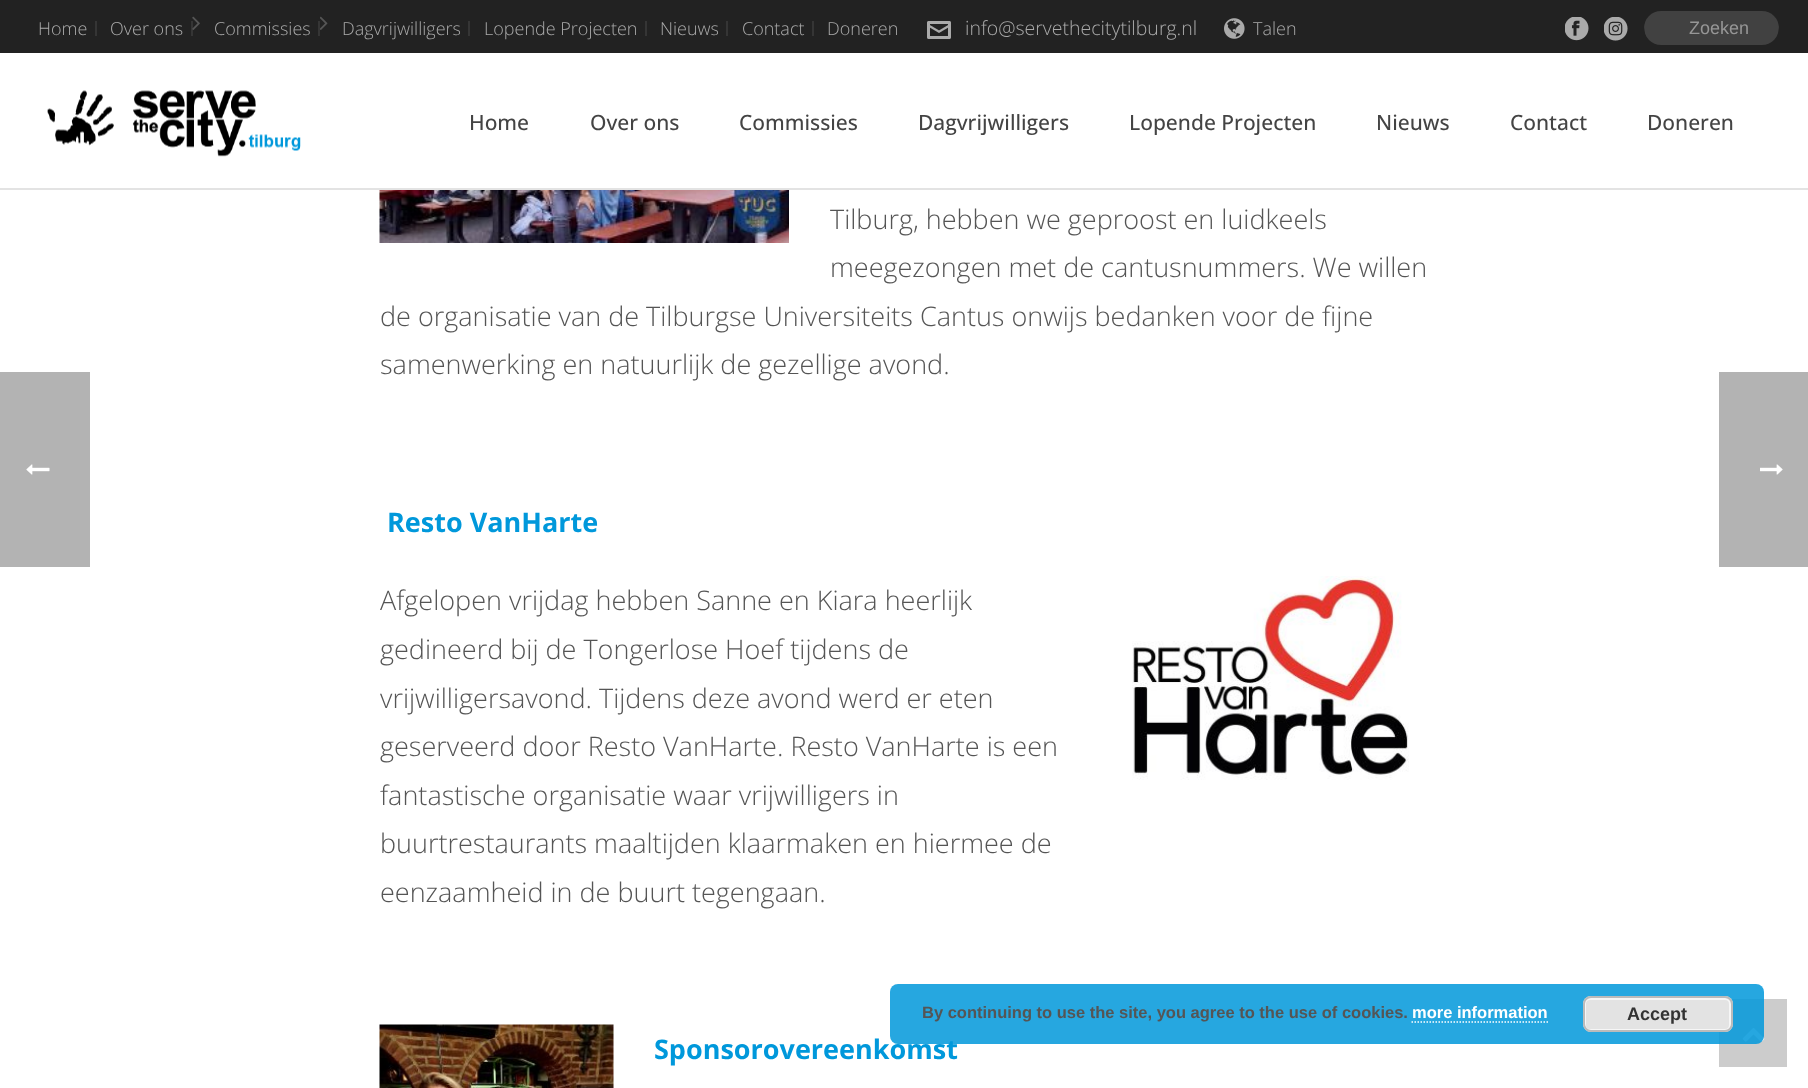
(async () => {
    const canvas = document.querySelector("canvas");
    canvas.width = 1808;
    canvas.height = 1088;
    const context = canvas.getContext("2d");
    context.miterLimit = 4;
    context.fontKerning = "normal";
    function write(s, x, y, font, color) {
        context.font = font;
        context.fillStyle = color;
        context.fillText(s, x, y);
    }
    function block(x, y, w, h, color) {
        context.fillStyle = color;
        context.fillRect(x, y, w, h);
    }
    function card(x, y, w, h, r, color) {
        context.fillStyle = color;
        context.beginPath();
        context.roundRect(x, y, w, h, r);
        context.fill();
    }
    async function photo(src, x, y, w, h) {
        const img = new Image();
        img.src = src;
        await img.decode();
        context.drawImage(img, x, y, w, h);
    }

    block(0, 0, 1808, 1088, "rgb(255, 255, 255)");
    block(0, 188, 1808, 2, "rgb(227, 227, 227)");
    block(0, 0, 1808, 53, "rgb(34, 34, 34)");
    block(95, 21, 2, 15, "rgb(53, 53, 53)");
    write("Home", 38, 35, "300 18px Open Sans", "rgb(170, 170, 170)");
    block(191, 21, 2, 15, "rgb(53, 53, 53)");
    write("Over ons", 110, 35, "300 18px Open Sans", "rgb(170, 170, 170)");
    await photo("media/1.png", 192, 16, 8, 14);
    block(318, 21, 2, 15, "rgb(53, 53, 53)");
    write("Commissies", 214, 35, "300 18px Open Sans", "rgb(170, 170, 170)");
    await photo("media/2.png", 320, 16, 8, 14);
    block(468, 21, 2, 15, "rgb(53, 53, 53)");
    write("Dagvrijwilligers", 342, 35, "300 18px Open Sans", "rgb(170, 170, 170)");
    block(645, 21, 2, 15, "rgb(53, 53, 53)");
    write("Lopende Projecten", 484, 35, "300 18px Open Sans", "rgb(170, 170, 170)");
    block(726, 21, 2, 15, "rgb(53, 53, 53)");
    write("Nieuws", 660, 35, "300 18px Open Sans", "rgb(170, 170, 170)");
    block(812, 21, 2, 15, "rgb(53, 53, 53)");
    write("Contact", 742, 35, "300 18px Open Sans", "rgb(170, 170, 170)");
    write("Doneren", 827, 35, "300 18px Open Sans", "rgb(170, 170, 170)");
    await photo("media/3.png", 927, 21, 24, 18);
    write("info@servethecitytilburg.nl", 965, 35, "300 19.5px Open Sans", "rgb(170, 170, 170)");
    await photo("media/4.png", 1224, 18, 21, 21);
    write("Talen", 1253, 35, "300 18px Open Sans", "rgb(170, 170, 170)");
    await photo("media/5.png", 1565, 17, 24, 24);
    await photo("media/6.png", 1604, 17, 24, 24);
    context.save();
    context.beginPath();
    context.roundRect(1644, 0, 135, 53, 26.5);
    context.clip();
    card(1644, 11, 135, 34, 17, "rgb(65, 65, 65)");
    context.restore();
    write("Zoeken", 1689, 34, "18px Liberation Sans", "rgb(150, 150, 150)");
    await photo("media/7.png", 47, 90, 254, 67);
    write("Home", 469, 130, "500 21px Open Sans", "rgb(68, 68, 68)");
    write("Over ons", 590, 130, "500 21px Open Sans", "rgb(68, 68, 68)");
    write("Commissies", 739, 130, "500 21px Open Sans", "rgb(68, 68, 68)");
    write("Dagvrijwilligers", 918, 130, "500 21px Open Sans", "rgb(68, 68, 68)");
    write("Lopende Projecten", 1129, 130, "500 21px Open Sans", "rgb(68, 68, 68)");
    write("Nieuws", 1376, 130, "500 21px Open Sans", "rgb(68, 68, 68)");
    write("Contact", 1510, 130, "500 21px Open Sans", "rgb(68, 68, 68)");
    write("Doneren", 1647, 130, "500 21px Open Sans", "rgb(68, 68, 68)");
    await photo("media/8.png", 379, 190, 410, 53);
    write("Tilburg, hebben we geproost en luidkeels", 830, 229, "300 27px Open Sans", "rgb(85, 85, 85)");
    write("meegezongen met de cantusnummers. We willen", 830, 277, "300 27px Open Sans", "rgb(85, 85, 85)");
    write("de organisatie van de Tilburgse Universiteits Cantus onwijs bedanken voor de fijne", 380, 326, "300 27px Open Sans", "rgb(85, 85, 85)");
    write("samenwerking en natuurlijk de gezellige avond.", 380, 374, "300 27px Open Sans", "rgb(85, 85, 85)");
    write("Resto VanHarte", 387, 532, "bold 27px Open Sans", "rgb(0, 152, 219)");
    write("Afgelopen vrijdag hebben Sanne en Kiara heerlijk", 380, 610, "300 27px Open Sans", "rgb(85, 85, 85)");
    await photo("media/9.png", 1132, 576, 277, 204);
    write("gedineerd bij de Tongerlose Hoef tijdens de", 380, 659, "300 27px Open Sans", "rgb(85, 85, 85)");
    write("vrijwilligersavond. Tijdens deze avond werd er eten", 380, 708, "300 27px Open Sans", "rgb(85, 85, 85)");
    write("geserveerd door Resto VanHarte. Resto VanHarte is een", 380, 756, "300 27px Open Sans", "rgb(85, 85, 85)");
    write("fantastische organisatie waar vrijwilligers in", 380, 805, "300 27px Open Sans", "rgb(85, 85, 85)");
    write("buurtrestaurants maaltijden klaarmaken en hiermee de", 380, 853, "300 27px Open Sans", "rgb(85, 85, 85)");
    write("eenzaamheid in de buurt tegengaan.", 380, 902, "300 27px Open Sans", "rgb(85, 85, 85)");
    await photo("media/10.png", 379, 1024, 235, 64);
    write("Sponsorovereenkomst", 654, 1059, "bold 27px Open Sans", "rgb(0, 152, 219)");
    block(0, 372, 90, 195, "rgb(179, 179, 179)");
    await photo("media/11.png", 26, 464, 24, 11);
    block(1719, 372, 89, 195, "rgb(179, 179, 179)");
    await photo("media/12.png", 1760, 464, 23, 11);
    block(1719, 999, 68, 68, "rgb(204, 204, 204)");
    await photo("media/13.png", 1742, 1028, 23, 14);
    card(890, 984, 874, 60, 8, "rgba(0, 152, 219, 0.85)");
    write("By continuing to use the site, you agree to the use of cookies.", 922, 1018, "bold 16.5px Liberation Sans", "rgb(85, 85, 85)");
    write("more information", 1412, 1018, "bold 16.5px Liberation Sans", "rgb(255, 255, 255)");
    context.beginPath();
    context.moveTo(1411.5, 1022);
    context.lineTo(1548, 1022);
    context.strokeStyle = "rgb(255, 255, 255)";
    context.lineWidth = 1.5;
    context.setLineDash([1.5, 1.5]);
    context.stroke();
    card(1583, 996, 150, 36, 8, "rgb(227, 227, 227)");
    context.beginPath();
    context.roundRect(1585, 999, 145, 31, 5);
    context.strokeStyle = "rgb(246, 246, 246)";
    context.lineWidth = 2;
    context.setLineDash([]);
    context.stroke();
    context.beginPath();
    context.roundRect(1584, 997, 148, 34, 7);
    context.strokeStyle = "rgb(187, 187, 187)";
    context.stroke();
    write("Accept", 1627, 1020, "bold 18px Liberation Sans", "rgb(51, 51, 51)");
})();
